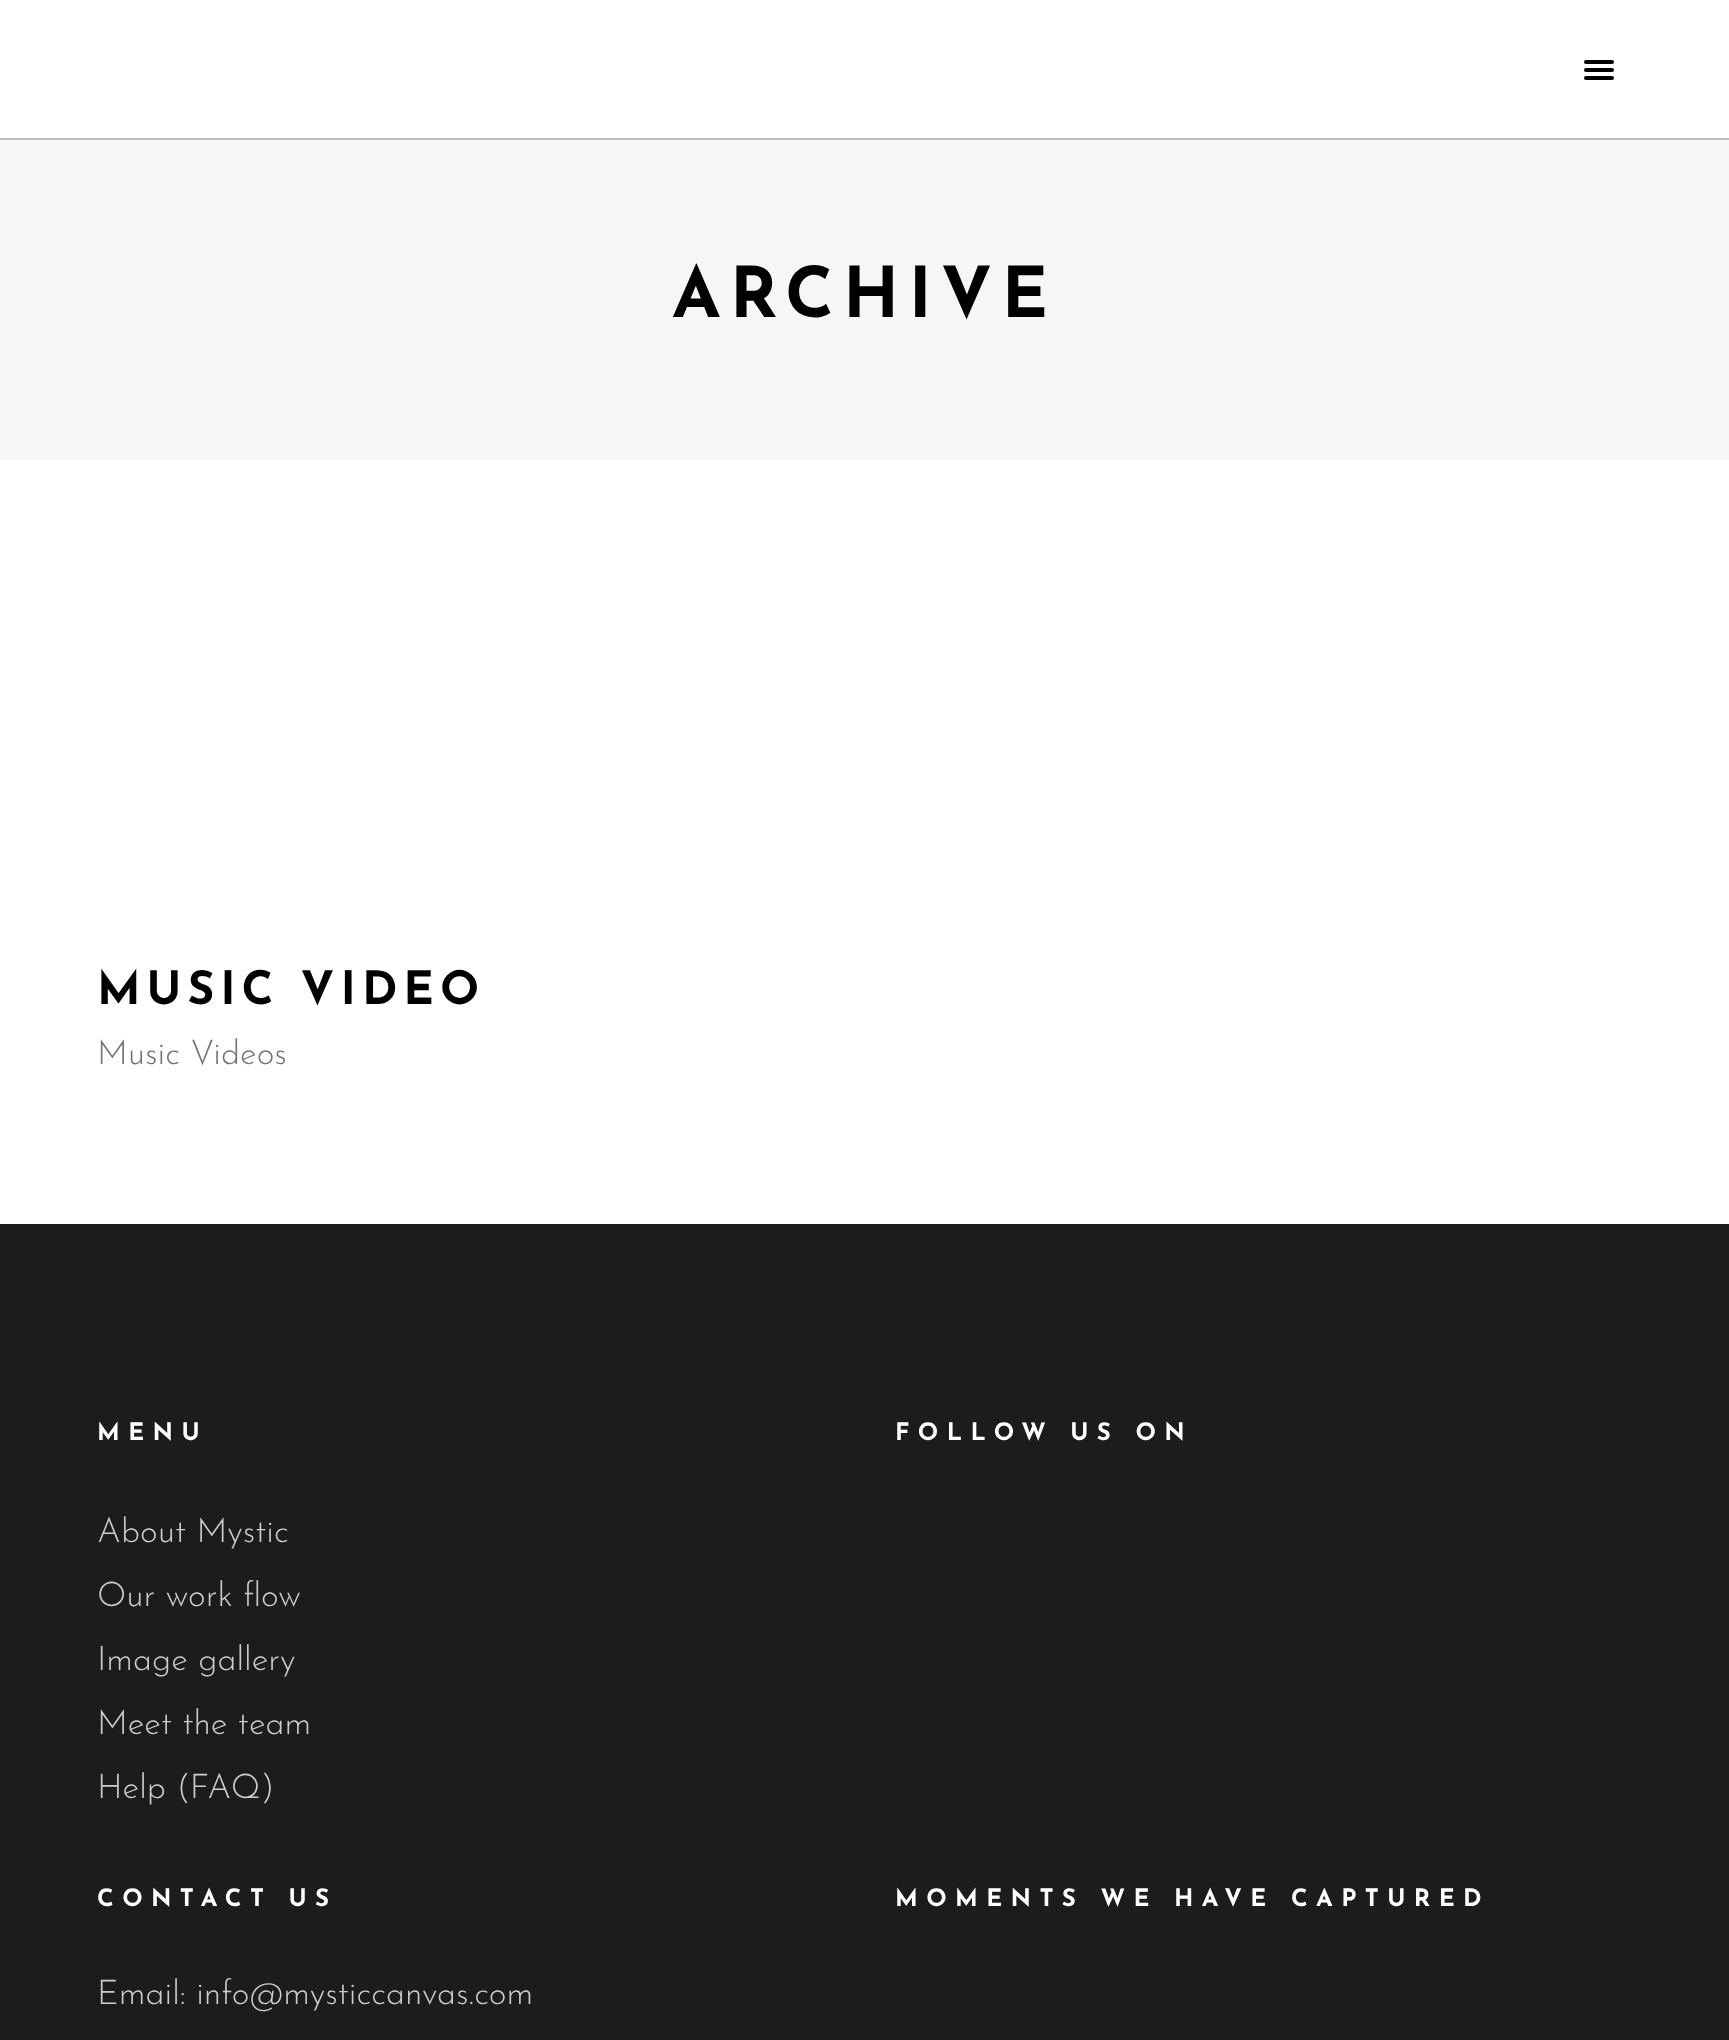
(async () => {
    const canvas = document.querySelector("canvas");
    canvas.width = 1729;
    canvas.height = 2040;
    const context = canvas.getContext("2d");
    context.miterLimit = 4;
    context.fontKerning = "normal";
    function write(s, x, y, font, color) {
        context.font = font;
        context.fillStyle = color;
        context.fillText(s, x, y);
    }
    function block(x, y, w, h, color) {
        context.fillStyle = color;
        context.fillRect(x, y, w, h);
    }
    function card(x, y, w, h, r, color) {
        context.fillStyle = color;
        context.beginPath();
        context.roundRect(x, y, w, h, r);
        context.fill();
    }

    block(0, 0, 1729, 2040, "rgb(255, 255, 255)");
    block(0, 138, 1729, 2, "rgb(187, 187, 187)");
    card(1584, 60, 30, 4, 2, "rgb(0, 0, 0)");
    card(1584, 68, 30, 4, 2, "rgb(0, 0, 0)");
    card(1584, 76, 30, 4, 2, "rgb(0, 0, 0)");
    block(0, 140, 1729, 320, "rgb(246, 246, 246)");
    context.letterSpacing = "9px";
    write("ARCHIVE", 672, 317, "100 70px Josefin Sans", "rgb(0, 0, 0)");
    context.letterSpacing = "6px";
    write("MUSIC VIDEO", 97, 1004, "100 46px Josefin Sans", "rgb(0, 0, 0)");
    context.letterSpacing = "0px";
    write("Music Videos", 97, 1064, "100 34px 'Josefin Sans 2'", "rgb(115, 115, 115)");
    block(0, 1224, 1729, 816, "rgb(28, 28, 28)");
    context.letterSpacing = "8.4px";
    write("MENU", 97, 1440, "100 24px Josefin Sans", "rgb(255, 255, 255)");
    context.letterSpacing = "0px";
    write("About Mystic", 97, 1542, "100 34px 'Josefin Sans 2'", "rgb(204, 204, 204)");
    write("Our work flow", 97, 1606, "100 34px 'Josefin Sans 2'", "rgb(204, 204, 204)");
    write("Image gallery", 97, 1670, "100 34px 'Josefin Sans 2'", "rgb(204, 204, 204)");
    write("Meet the team", 97, 1734, "100 34px 'Josefin Sans 2'", "rgb(204, 204, 204)");
    write("Help (FAQ)", 97, 1798, "100 34px 'Josefin Sans 2'", "rgb(204, 204, 204)");
    context.letterSpacing = "8.4px";
    write("FOLLOW US ON", 895, 1440, "100 24px Josefin Sans", "rgb(255, 255, 255)");
    write("CONTACT US", 97, 1906, "100 24px Josefin Sans", "rgb(255, 255, 255)");
    context.letterSpacing = "0px";
    write("Email: info@mysticcanvas.com", 97, 2004, "100 34px 'Josefin Sans 2'", "rgb(204, 204, 204)");
    context.letterSpacing = "8.4px";
    write("MOMENTS WE HAVE CAPTURED", 895, 1906, "100 24px Josefin Sans", "rgb(255, 255, 255)");
})();
